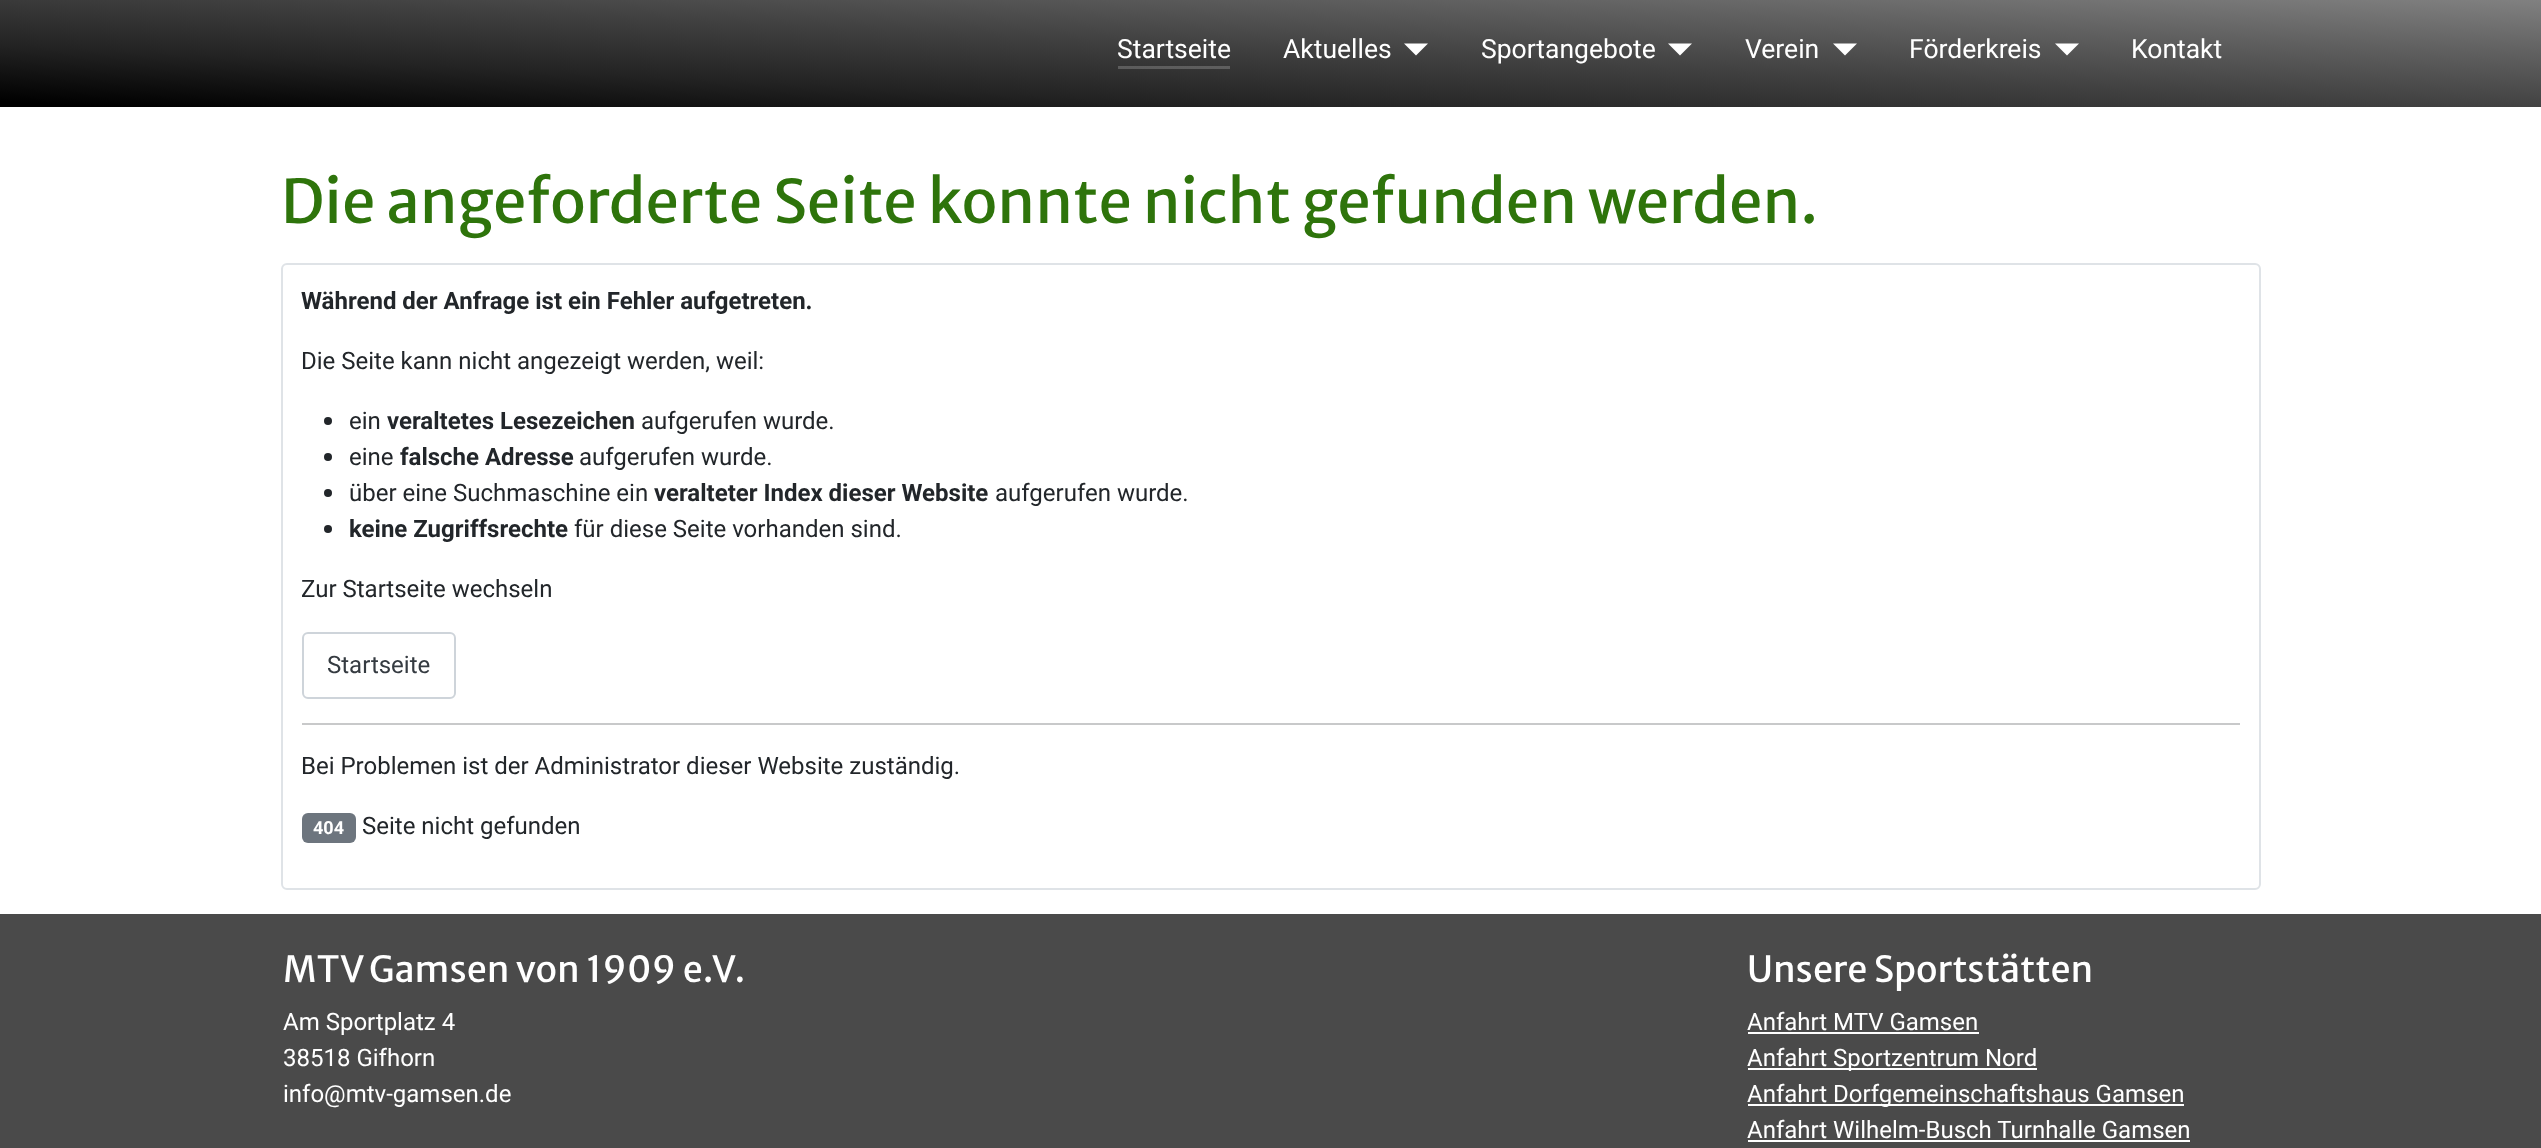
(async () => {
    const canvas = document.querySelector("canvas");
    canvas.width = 2541;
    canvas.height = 1148;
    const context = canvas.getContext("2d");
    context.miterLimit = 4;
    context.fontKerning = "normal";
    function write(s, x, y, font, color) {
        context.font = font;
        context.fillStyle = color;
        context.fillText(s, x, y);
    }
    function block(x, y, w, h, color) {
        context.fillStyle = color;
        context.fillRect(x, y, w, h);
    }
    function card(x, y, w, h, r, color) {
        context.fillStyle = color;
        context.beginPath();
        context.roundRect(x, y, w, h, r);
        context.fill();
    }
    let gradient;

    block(0, 0, 2541, 1148, "rgb(255, 255, 255)");
    gradient = context.createLinearGradient(1265, 163, 1276, -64);
    gradient.addColorStop(0, "rgb(0, 0, 0)");
    gradient.addColorStop(0.25, "rgb(35, 35, 35)");
    gradient.addColorStop(0.5, "rgb(64, 64, 64)");
    gradient.addColorStop(0.75, "rgb(96, 96, 96)");
    gradient.addColorStop(1, "rgb(130, 130, 130)");
    context.fillStyle = gradient;
    context.fillRect(0, 0, 2541, 107);
    gradient = context.createLinearGradient(1265, 163, 1276, -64);
    gradient.addColorStop(0, "rgb(51, 51, 51)");
    gradient.addColorStop(0.25, "rgb(79, 79, 79)");
    gradient.addColorStop(0.5, "rgb(102, 102, 102)");
    gradient.addColorStop(0.75, "rgb(128, 128, 128)");
    gradient.addColorStop(1, "rgb(155, 155, 155)");
    context.fillStyle = gradient;
    context.fillRect(1118, 66, 112, 3);
    write("Startseite", 1117, 58, "26.5px Roboto", "rgb(255, 255, 255)");
    write("Aktuelles", 1283, 58, "26.5px Roboto", "rgb(255, 255, 255)");
    context.beginPath();
    context.moveTo(1404, 43.5);
    context.lineTo(1428, 43.5);
    context.lineTo(1416, 55.5);
    context.closePath();
    context.fill();
    write("Sportangebote", 1481, 58, "26.5px Roboto", "rgb(255, 255, 255)");
    context.beginPath();
    context.moveTo(1668, 43.5);
    context.lineTo(1692, 43.5);
    context.lineTo(1680, 55.5);
    context.closePath();
    context.fill();
    write("Verein", 1745, 58, "26.5px Roboto", "rgb(255, 255, 255)");
    context.beginPath();
    context.moveTo(1833, 43.5);
    context.lineTo(1857, 43.5);
    context.lineTo(1845, 55.5);
    context.closePath();
    context.fill();
    write("Förderkreis", 1909, 58, "26.5px Roboto", "rgb(255, 255, 255)");
    context.beginPath();
    context.moveTo(2055, 43.5);
    context.lineTo(2079, 43.5);
    context.lineTo(2067, 55.5);
    context.closePath();
    context.fill();
    write("Kontakt", 2131, 58, "26.5px Roboto", "rgb(255, 255, 255)");
    write("Die angeforderte Seite konnte nicht gefunden werden.", 281, 223, "60px Merriweather Sans", "rgb(46, 116, 11)");
    context.beginPath();
    context.roundRect(282, 264, 1978, 625, 5);
    context.strokeStyle = "rgb(223, 227, 231)";
    context.lineWidth = 2;
    context.stroke();
    write("Während der Anfrage ist ein Fehler aufgetreten.", 301, 309, "bold 24px Roboto", "rgb(34, 38, 42)");
    write("Die Seite kann nicht angezeigt werden, weil:", 301, 369, "24px Roboto", "rgb(34, 38, 42)");
    context.beginPath();
    context.arc(328, 421, 4, 0, Math.PI * 2);
    context.fill();
    write("ein", 349, 429, "24px Roboto", "rgb(34, 38, 42)");
    write("veraltetes Lesezeichen", 387, 429, "bold 24px Roboto", "rgb(34, 38, 42)");
    write("aufgerufen wurde.", 641, 429, "24px Roboto", "rgb(34, 38, 42)");
    context.beginPath();
    context.arc(328, 457, 4, 0, Math.PI * 2);
    context.fill();
    write("eine", 349, 465, "24px Roboto", "rgb(34, 38, 42)");
    write("falsche Adresse", 400, 465, "bold 24px Roboto", "rgb(34, 38, 42)");
    write("aufgerufen wurde.", 579, 465, "24px Roboto", "rgb(34, 38, 42)");
    context.beginPath();
    context.arc(328, 493, 4, 0, Math.PI * 2);
    context.fill();
    write("über eine Suchmaschine ein", 349, 501, "24px Roboto", "rgb(34, 38, 42)");
    write("veralteter Index dieser Website", 654, 501, "bold 24px Roboto", "rgb(34, 38, 42)");
    write("aufgerufen wurde.", 995, 501, "24px Roboto", "rgb(34, 38, 42)");
    context.beginPath();
    context.arc(328, 529, 4, 0, Math.PI * 2);
    context.fill();
    write("keine Zugriffsrechte", 349, 537, "bold 24px Roboto", "rgb(34, 38, 42)");
    write("für diese Seite vorhanden sind.", 574, 537, "24px Roboto", "rgb(34, 38, 42)");
    write("Zur Startseite wechseln", 301, 597, "24px Roboto", "rgb(34, 38, 42)");
    context.beginPath();
    context.roundRect(303, 633, 152, 65, 5);
    context.strokeStyle = "rgb(206, 212, 218)";
    context.stroke();
    write("Startseite", 327, 673, "24px Roboto", "rgb(53, 59, 65)");
    block(302, 723, 1938, 2, "rgb(200, 201, 202)");
    write("Bei Problemen ist der Administrator dieser Website zuständig.", 301, 774, "24px Roboto", "rgb(34, 38, 42)");
    card(302, 813, 54, 30, 6, "rgb(109, 117, 126)");
    write("404", 313, 834, "bold 18px Roboto", "rgb(255, 255, 255)");
    write("Seite nicht gefunden", 362, 834, "24px Roboto", "rgb(34, 38, 42)");
    block(0, 914, 2541, 234, "rgb(74, 74, 74)");
    write("MTV Gamsen von 1909 e.V.", 283, 982, "36px Merriweather Sans", "rgb(255, 255, 255)");
    write("Am Sportplatz 4", 283, 1030, "24px Roboto", "rgb(255, 255, 255)");
    write("38518 Gifhorn", 283, 1066, "24px Roboto", "rgb(255, 255, 255)");
    write("info@mtv-gamsen.de", 283, 1102, "24px Roboto", "rgb(255, 255, 255)");
    write("Unsere Sportstätten", 1747, 982, "36px Merriweather Sans", "rgb(255, 255, 255)");
    write("Anfahrt MTV Gamsen", 1747, 1030, "24px Roboto", "rgb(255, 255, 255)");
    block(1748, 1032, 231, 2, "rgb(255, 255, 255)");
    block(1748, 1068, 289, 2, "rgb(255, 255, 255)");
    write("Anfahrt Sportzentrum Nord", 1747, 1066, "24px Roboto", "rgb(255, 255, 255)");
    block(1748, 1104, 436, 2, "rgb(255, 255, 255)");
    write("Anfahrt Dorfgemeinschaftshaus Gamsen", 1747, 1102, "24px Roboto", "rgb(255, 255, 255)");
    write("Anfahrt Wilhelm-Busch Turnhalle Gamsen", 1747, 1138, "24px Roboto", "rgb(255, 255, 255)");
    block(1748, 1140, 442, 2, "rgb(255, 255, 255)");
})();
